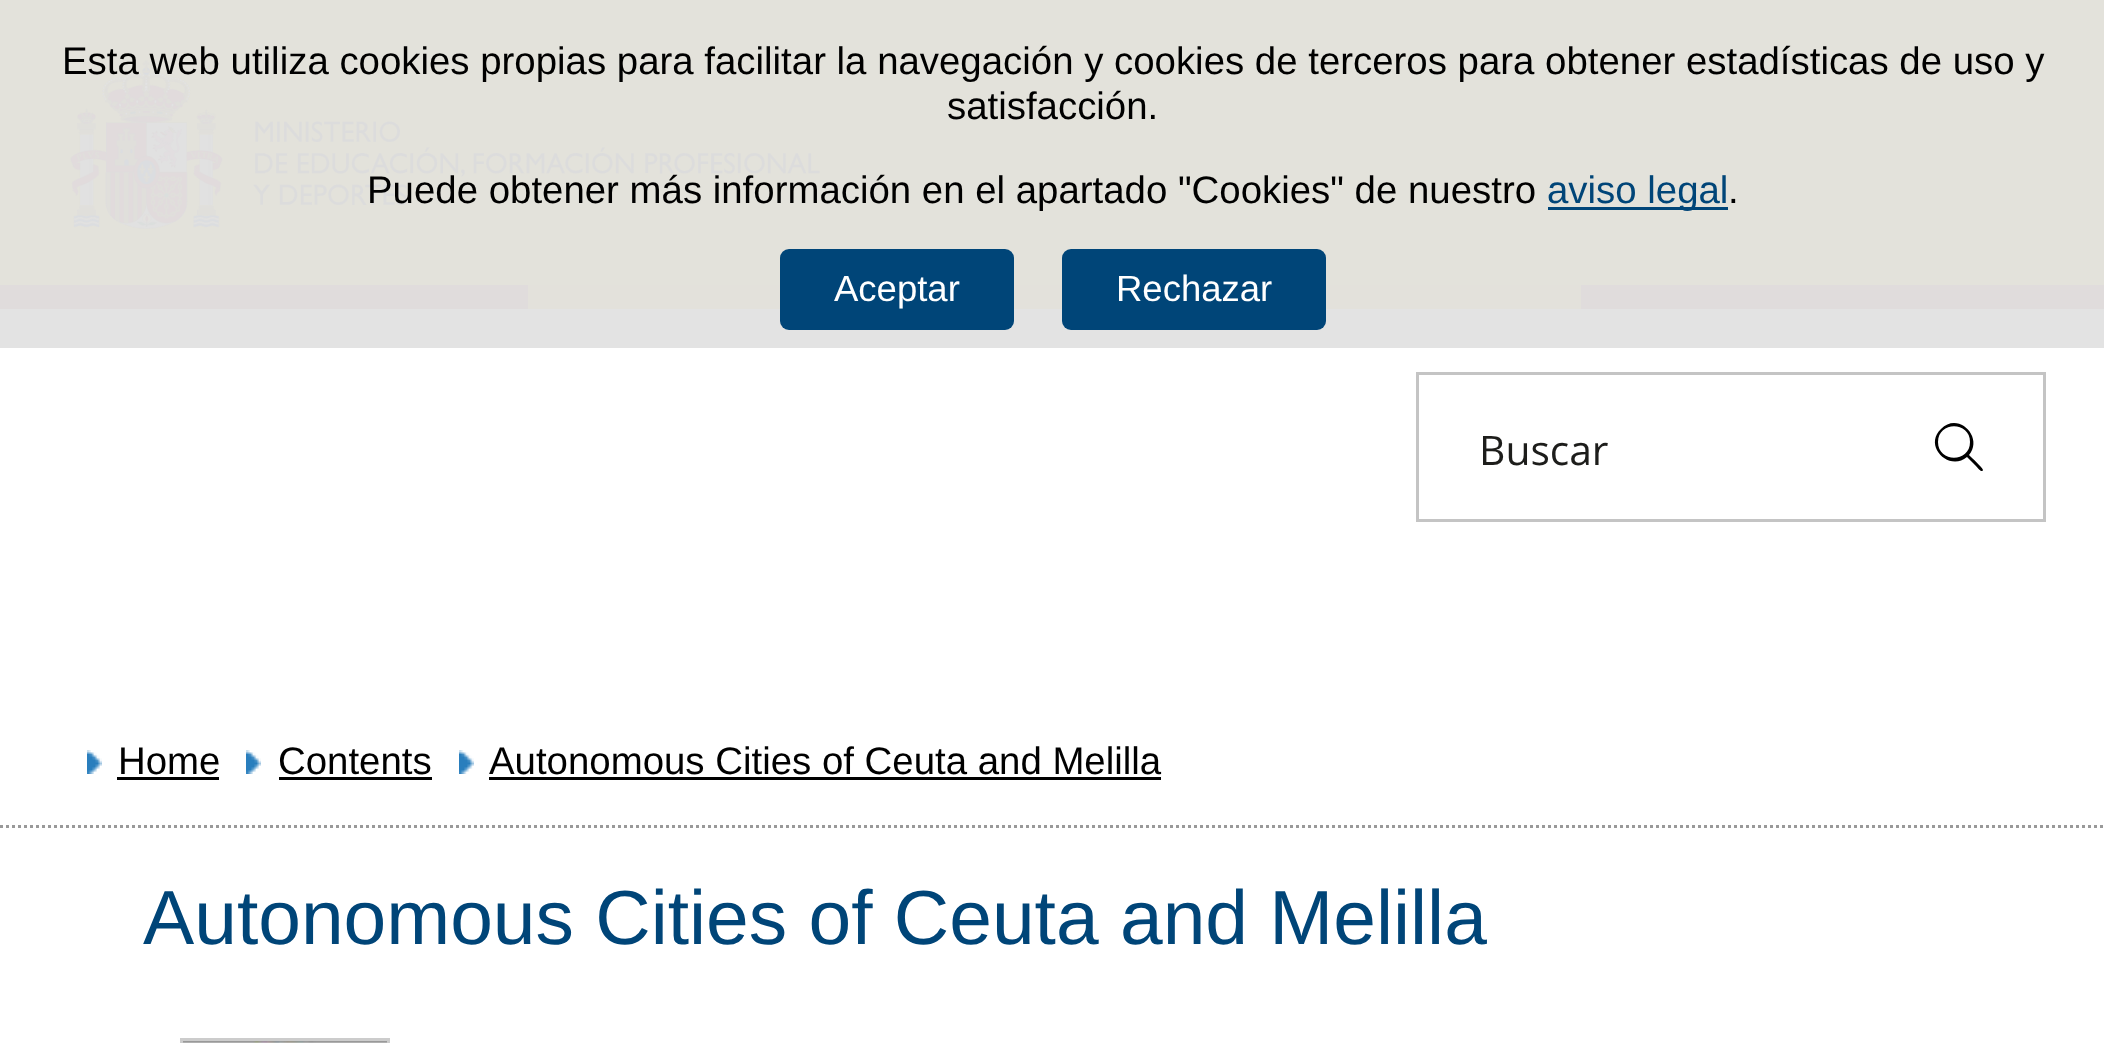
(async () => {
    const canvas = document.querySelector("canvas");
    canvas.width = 2104;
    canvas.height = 1043;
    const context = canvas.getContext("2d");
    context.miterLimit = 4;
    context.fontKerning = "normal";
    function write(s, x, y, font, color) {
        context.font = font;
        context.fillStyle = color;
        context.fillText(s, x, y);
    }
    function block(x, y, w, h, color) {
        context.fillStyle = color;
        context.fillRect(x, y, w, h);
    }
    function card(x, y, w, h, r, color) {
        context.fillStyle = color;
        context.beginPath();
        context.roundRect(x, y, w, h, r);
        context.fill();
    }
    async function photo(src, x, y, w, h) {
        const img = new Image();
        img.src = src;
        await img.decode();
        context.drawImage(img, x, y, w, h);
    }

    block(0, 0, 2104, 1043, "rgb(255, 255, 255)");
    block(0, 0, 2104, 285, "rgb(227, 226, 219)");
    await photo("media/1.png", 70, 60, 750, 169);
    write("Esta web utiliza cookies propias para facilitar la navegación y cookies de terceros para obtener estadísticas de uso y", 62, 74, "38.4px Liberation Sans", "rgb(0, 0, 0)");
    write("satisfacción.", 947, 119, "38.4px Liberation Sans", "rgb(0, 0, 0)");
    write("Puede obtener más información en el apartado \"Cookies\" de nuestro", 367, 203, "38.4px Liberation Sans", "rgb(0, 0, 0)");
    block(1548, 207, 180, 3, "rgb(0, 69, 120)");
    write("aviso legal", 1547, 203, "38.4px Liberation Sans", "rgb(0, 69, 120)");
    write(".", 1728, 203, "38.4px Liberation Sans", "rgb(0, 0, 0)");
    block(0, 309, 2104, 39, "rgb(227, 227, 227)");
    block(528, 285, 1053, 24, "rgb(227, 225, 219)");
    card(780, 249, 234, 81, 9, "rgb(0, 69, 120)");
    write("Aceptar", 834, 301, "36.5px Liberation Sans", "rgb(255, 255, 255)");
    card(1062, 249, 264, 81, 9, "rgb(0, 69, 120)");
    write("Rechazar", 1116, 301, "36.5px Liberation Sans", "rgb(255, 255, 255)");
    block(0, 285, 528, 24, "rgb(224, 220, 220)");
    block(1581, 285, 523, 24, "rgb(224, 220, 220)");
    context.strokeStyle = "rgb(196, 196, 196)";
    context.lineWidth = 3;
    context.strokeRect(1417.5, 373.5, 627, 147);
    write("Buscar", 1479, 465, "42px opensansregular", "rgb(29, 29, 27)");
    context.fillStyle = "rgb(0, 0, 0)";
    context.beginPath();
    context.moveTo(1970, 442);
    context.bezierCurveTo(1970, 463, 1938, 463, 1938, 442);
    context.bezierCurveTo(1938, 421, 1970, 421, 1970, 442);
    context.closePath();
    context.moveTo(1967, 457);
    context.bezierCurveTo(1949, 472, 1923, 446, 1941, 429);
    context.bezierCurveTo(1958, 411, 1984, 437, 1969, 455);
    context.bezierCurveTo(1971, 457, 1983, 468, 1983, 470);
    context.bezierCurveTo(1982, 474, 1976, 466, 1976, 466);
    context.closePath();
    context.fill("evenodd");
    context.beginPath();
    context.moveTo(0, 826.5);
    context.lineTo(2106, 826.5);
    context.strokeStyle = "rgb(153, 153, 153)";
    context.setLineDash([3, 3]);
    context.stroke();
    await photo("media/2.png", 87, 750, 15, 24);
    write("Home", 118, 774, "38.4px Liberation Sans", "rgb(0, 0, 0)");
    block(117, 777, 102, 3, "rgb(0, 0, 0)");
    await photo("media/2.png", 246, 750, 15, 24);
    write("Contents", 278, 774, "38.4px Liberation Sans", "rgb(0, 0, 0)");
    block(279, 777, 153, 3, "rgb(0, 0, 0)");
    await photo("media/3.png", 459, 750, 15, 24);
    write("Autonomous Cities of Ceuta and Melilla", 489, 774, "38.4px Liberation Sans", "rgb(0, 0, 0)");
    block(489, 777, 672, 3, "rgb(0, 0, 0)");
    write("Autonomous Cities of Ceuta and Melilla", 143, 944, "76.75px Liberation Sans", "rgb(0, 69, 120)");
    context.strokeStyle = "rgb(204, 204, 204)";
    context.setLineDash([]);
    context.strokeRect(181.5, 1039.5, 207, 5);
    await photo("media/4.png", 183, 1041, 204, 2);
})();
